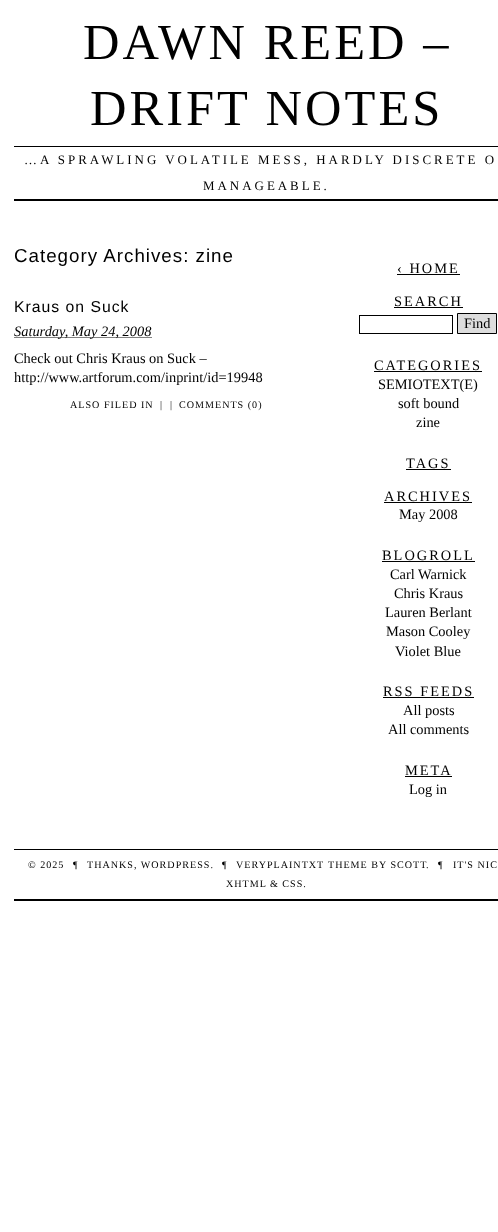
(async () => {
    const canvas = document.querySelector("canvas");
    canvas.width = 498;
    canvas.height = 1232;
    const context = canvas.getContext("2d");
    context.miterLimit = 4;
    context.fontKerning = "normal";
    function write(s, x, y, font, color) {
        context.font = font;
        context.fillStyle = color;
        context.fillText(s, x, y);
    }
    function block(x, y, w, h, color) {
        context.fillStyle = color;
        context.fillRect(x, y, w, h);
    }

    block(0, 0, 498, 1232, "rgb(255, 255, 255)");
    context.letterSpacing = "3px";
    write("DAWN REED –", 83, 59, "50.5px Liberation Serif", "rgb(0, 0, 0)");
    write("DRIFT NOTES", 90, 125, "50.5px Liberation Serif", "rgb(0, 0, 0)");
    block(14, 146, 484, 1, "rgb(0, 0, 0)");
    block(14, 199, 484, 2, "rgb(0, 0, 0)");
    write("…A SPRAWLING VOLATILE MESS, HARDLY DISCRETE O", 24, 164, "12.95px Liberation Serif", "rgb(0, 0, 0)");
    write("MANAGEABLE.", 203, 190, "12.95px Liberation Serif", "rgb(0, 0, 0)");
    context.letterSpacing = "1px";
    write("Category Archives: zine", 14, 262, "18.75px Liberation Sans", "rgb(0, 0, 0)");
    write("Kraus on Suck", 14, 312, "15.75px Liberation Sans", "rgb(0, 0, 0)");
    context.beginPath();
    context.moveTo(14.5, 337.5);
    context.lineTo(152, 337.5);
    context.strokeStyle = "rgb(0, 0, 0)";
    context.setLineDash([1, 1]);
    context.stroke();
    context.letterSpacing = "0px";
    write("Saturday, May 24, 2008", 14, 336, "italic 14.4px Liberation Serif", "rgb(0, 0, 0)");
    write("Check out Chris Kraus on Suck –", 14, 363, "14.4px Liberation Serif", "rgb(0, 0, 0)");
    write("http://www.artforum.com/inprint/id=19948", 14, 382, "14.4px Liberation Serif", "rgb(0, 0, 0)");
    context.letterSpacing = "1px";
    write("ALSO FILED IN", 70, 408, "10.1px Liberation Serif", "rgb(0, 0, 0)");
    write("|", 160, 408, "10.1px Liberation Serif", "rgb(0, 0, 0)");
    write("|", 170, 408, "10.1px Liberation Serif", "rgb(0, 0, 0)");
    write("COMMENTS (0)", 179, 408, "10.1px Liberation Serif", "rgb(0, 0, 0)");
    context.letterSpacing = "2px";
    write("‹ HOME", 397, 273, "14.4px Liberation Serif", "rgb(0, 0, 0)");
    block(397, 274, 63, 1, "rgb(0, 0, 0)");
    write("SEARCH", 394, 306, "14.4px Liberation Serif", "rgb(0, 0, 0)");
    block(394, 307, 69, 1, "rgb(0, 0, 0)");
    context.setLineDash([]);
    context.strokeRect(359.5, 315.5, 93, 18);
    context.fillStyle = "rgb(221, 221, 221)";
    context.beginPath();
    context.rect(457.5, 313.5, 39, 20);
    context.fill();
    context.stroke();
    context.letterSpacing = "0px";
    write("Find", 464, 328, "14.4px Liberation Serif", "rgb(0, 0, 0)");
    context.letterSpacing = "2px";
    write("CATEGORIES", 374, 370, "14.4px Liberation Serif", "rgb(0, 0, 0)");
    block(374, 371, 108, 1, "rgb(0, 0, 0)");
    context.letterSpacing = "0px";
    write("SEMIOTEXT(E)", 378, 389, "14.4px Liberation Serif", "rgb(0, 0, 0)");
    write("soft bound", 398, 408, "14.4px Liberation Serif", "rgb(0, 0, 0)");
    write("zine", 416, 427, "14.4px Liberation Serif", "rgb(0, 0, 0)");
    context.letterSpacing = "2px";
    write("TAGS", 406, 468, "14.4px Liberation Serif", "rgb(0, 0, 0)");
    block(406, 469, 45, 1, "rgb(0, 0, 0)");
    write("ARCHIVES", 384, 501, "14.4px Liberation Serif", "rgb(0, 0, 0)");
    block(384, 502, 88, 1, "rgb(0, 0, 0)");
    context.letterSpacing = "0px";
    write("May 2008", 399, 519, "14.4px Liberation Serif", "rgb(0, 0, 0)");
    context.letterSpacing = "2px";
    write("BLOGROLL", 382, 560, "14.4px Liberation Serif", "rgb(0, 0, 0)");
    block(382, 561, 93, 1, "rgb(0, 0, 0)");
    context.letterSpacing = "0px";
    write("Carl Warnick", 390, 579, "14.4px Liberation Serif", "rgb(0, 0, 0)");
    write("Chris Kraus", 394, 598, "14.4px Liberation Serif", "rgb(0, 0, 0)");
    write("Lauren Berlant", 385, 617, "14.4px Liberation Serif", "rgb(0, 0, 0)");
    write("Mason Cooley", 386, 636, "14.4px Liberation Serif", "rgb(0, 0, 0)");
    write("Violet Blue", 395, 656, "14.4px Liberation Serif", "rgb(0, 0, 0)");
    context.letterSpacing = "2px";
    write("RSS FEEDS", 383, 696, "14.4px Liberation Serif", "rgb(0, 0, 0)");
    block(383, 697, 91, 1, "rgb(0, 0, 0)");
    context.letterSpacing = "0px";
    write("All posts", 403, 715, "14.4px Liberation Serif", "rgb(0, 0, 0)");
    write("All comments", 388, 734, "14.4px Liberation Serif", "rgb(0, 0, 0)");
    context.letterSpacing = "2px";
    write("META", 405, 775, "14.4px Liberation Serif", "rgb(0, 0, 0)");
    block(405, 776, 47, 1, "rgb(0, 0, 0)");
    context.letterSpacing = "0px";
    write("Log in", 409, 794, "14.4px Liberation Serif", "rgb(0, 0, 0)");
    block(14, 849, 484, 1, "rgb(0, 0, 0)");
    block(14, 899, 484, 2, "rgb(0, 0, 0)");
    context.letterSpacing = "1px";
    write("© 2025", 28, 868, "10.1px Liberation Serif", "rgb(0, 0, 0)");
    write("¶", 73, 868, "10.1px Liberation Serif", "rgb(0, 0, 0)");
    write("THANKS, WORDPRESS.", 87, 868, "10.1px Liberation Serif", "rgb(0, 0, 0)");
    write("¶", 222, 868, "10.1px Liberation Serif", "rgb(0, 0, 0)");
    write("VERYPLAINTXT", 236, 868, "10.1px Liberation Serif", "rgb(0, 0, 0)");
    write("THEME BY SCOTT", 328, 868, "10.1px Liberation Serif", "rgb(0, 0, 0)");
    write(".", 426, 868, "10.1px Liberation Serif", "rgb(0, 0, 0)");
    write("¶", 438, 868, "10.1px Liberation Serif", "rgb(0, 0, 0)");
    write("IT'S NIC", 453, 868, "10.1px Liberation Serif", "rgb(0, 0, 0)");
    write("XHTML", 226, 887, "10.1px Liberation Serif", "rgb(0, 0, 0)");
    write("& CSS.", 270, 887, "10.1px Liberation Serif", "rgb(0, 0, 0)");
})();
